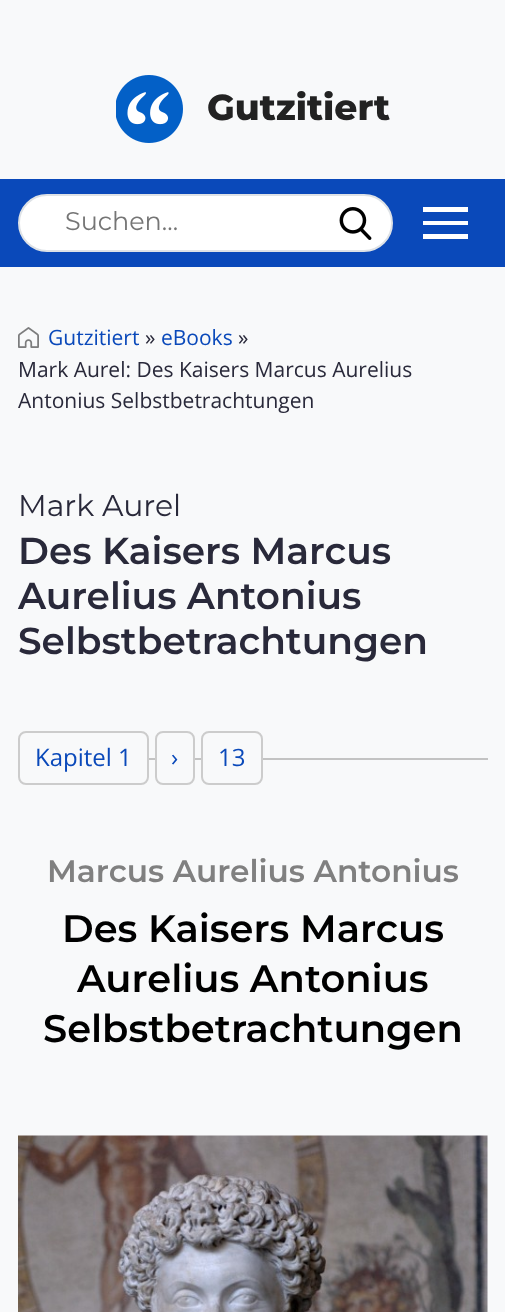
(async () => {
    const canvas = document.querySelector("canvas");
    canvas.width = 505;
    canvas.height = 1312;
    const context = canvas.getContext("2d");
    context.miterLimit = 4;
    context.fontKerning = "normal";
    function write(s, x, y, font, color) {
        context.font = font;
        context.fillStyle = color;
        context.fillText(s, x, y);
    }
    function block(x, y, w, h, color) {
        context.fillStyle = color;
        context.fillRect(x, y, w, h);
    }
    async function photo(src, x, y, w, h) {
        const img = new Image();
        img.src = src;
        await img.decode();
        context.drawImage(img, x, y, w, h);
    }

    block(0, 0, 505, 1312, "rgb(248, 249, 250)");
    await photo("media/1.png", 116, 75, 67, 68);
    write("Gutzitiert", 207, 120, "800 36px Montserrat", "rgb(34, 34, 34)");
    block(0, 179, 505, 88, "rgb(10, 73, 186)");
    context.fillStyle = "rgb(255, 255, 255)";
    context.beginPath();
    context.roundRect(19, 195, 373, 56, 28);
    context.fill();
    context.strokeStyle = "rgb(222, 226, 230)";
    context.lineWidth = 2;
    context.stroke();
    write("Suchen...", 65, 230, "25.5px Montserrat", "rgb(117, 117, 117)");
    await photo("media/2.png", 339, 207, 33, 33);
    block(423, 207, 45, 5, "rgb(255, 255, 255)");
    block(423, 221, 45, 4, "rgb(255, 255, 255)");
    block(423, 234, 45, 5, "rgb(255, 255, 255)");
    await photo("media/3.png", 18, 327, 21, 21);
    write("Gutzitiert", 48, 345, "21px Open Sans", "rgb(10, 73, 186)");
    write("»", 145, 345, "21px Open Sans", "rgb(41, 41, 58)");
    write("eBooks", 161, 345, "21px Open Sans", "rgb(10, 73, 186)");
    write("»", 238, 345, "21px Open Sans", "rgb(41, 41, 58)");
    write("Mark Aurel: Des Kaisers Marcus Aurelius", 18, 377, "21px Open Sans", "rgb(41, 41, 58)");
    write("Antonius Selbstbetrachtungen", 18, 408, "21px Open Sans", "rgb(41, 41, 58)");
    write("Mark Aurel", 18, 516, "30px Montserrat", "rgb(41, 41, 58)");
    write("Des Kaisers Marcus", 18, 564, "600 37.5px Montserrat", "rgb(41, 41, 58)");
    write("Aurelius Antonius", 18, 609, "600 37.5px Montserrat", "rgb(41, 41, 58)");
    write("Selbstbetrachtungen", 18, 654, "600 37.5px Montserrat", "rgb(41, 41, 58)");
    context.beginPath();
    context.roundRect(19, 732, 129, 52, 7);
    context.strokeStyle = "rgb(204, 204, 204)";
    context.stroke();
    write("Kapitel 1", 35, 766, "24px Open Sans", "rgb(10, 73, 186)");
    block(149, 758, 339, 2, "rgb(195, 195, 195)");
    block(155, 758, 40, 2, "rgb(248, 249, 250)");
    context.beginPath();
    context.roundRect(156, 732, 38, 52, 7);
    context.stroke();
    write("›", 171, 766, "24px Open Sans", "rgb(10, 73, 186)");
    block(201, 758, 62, 2, "rgb(248, 249, 250)");
    context.beginPath();
    context.roundRect(202, 732, 60, 52, 7);
    context.stroke();
    write("13", 218, 766, "24px Open Sans", "rgb(10, 73, 186)");
    write("Marcus Aurelius Antonius", 47, 882, "600 31.25px Montserrat", "rgb(128, 128, 128)");
    write("Des Kaisers Marcus", 62, 942, "600 38.4px Montserrat", "rgb(0, 0, 0)");
    write("Aurelius Antonius", 77, 992, "600 38.4px Montserrat", "rgb(0, 0, 0)");
    write("Selbstbetrachtungen", 43, 1042, "600 38.4px Montserrat", "rgb(0, 0, 0)");
    await photo("media/4.png", 18, 1135, 470, 177);
})();
